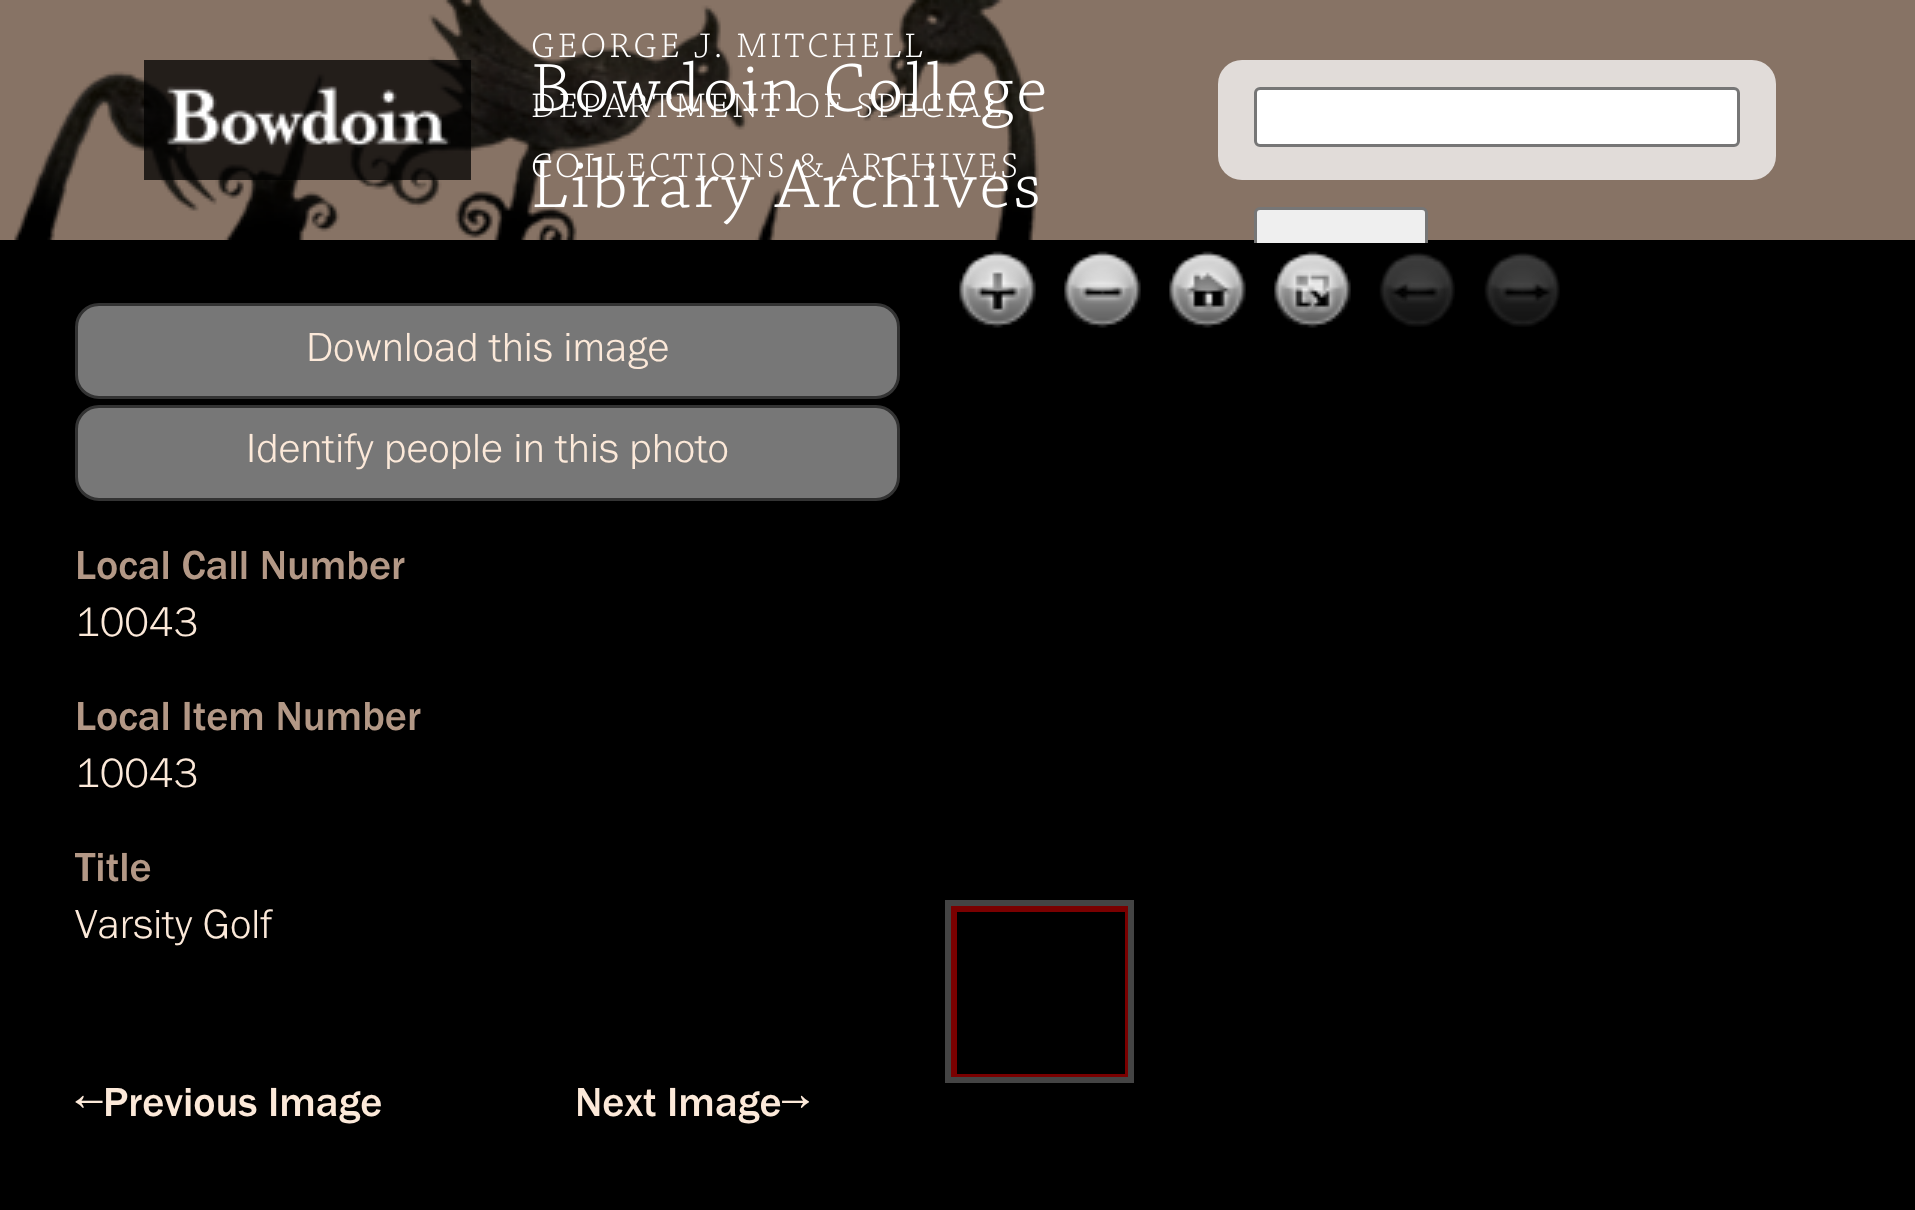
(async () => {
    const canvas = document.querySelector("canvas");
    canvas.width = 1915;
    canvas.height = 1210;
    const context = canvas.getContext("2d");
    context.miterLimit = 4;
    context.fontKerning = "normal";
    function write(s, x, y, font, color) {
        context.font = font;
        context.fillStyle = color;
        context.fillText(s, x, y);
    }
    function block(x, y, w, h, color) {
        context.fillStyle = color;
        context.fillRect(x, y, w, h);
    }
    function card(x, y, w, h, r, color) {
        context.fillStyle = color;
        context.beginPath();
        context.roundRect(x, y, w, h, r);
        context.fill();
    }
    async function photo(src, x, y, w, h) {
        const img = new Image();
        img.src = src;
        await img.decode();
        context.drawImage(img, x, y, w, h);
    }

    block(0, 0, 1915, 1210, "rgb(0, 0, 0)");
    block(0, 0, 1915, 240, "rgb(135, 115, 101)");
    await photo("media/1.png", 14, 0, 1025, 240);
    await photo("media/2.png", 144, 60, 327, 120);
    await photo("media/3.png", 532, 33, 391, 25);
    await photo("media/6.png", 534, 60, 511, 69);
    await photo("media/4.png", 532, 93, 469, 25);
    await photo("media/7.png", 534, 156, 504, 69);
    await photo("media/5.png", 532, 153, 484, 25);
    card(1218, 60, 558, 120, 24, "rgb(225, 220, 217)");
    context.fillStyle = "rgb(255, 255, 255)";
    context.beginPath();
    context.roundRect(1255.5, 88.5, 483, 57, 4.5);
    context.fill();
    context.strokeStyle = "rgb(118, 118, 118)";
    context.lineWidth = 3;
    context.stroke();
    context.fillStyle = "rgb(239, 239, 239)";
    context.beginPath();
    context.roundRect(1255.5, 208.5, 171, 60, 4.5);
    context.fill();
    context.stroke();
    block(1254, 243, 174, 27, "rgb(0, 0, 0)");
    context.fillStyle = "rgb(119, 119, 119)";
    context.beginPath();
    context.roundRect(76.5, 304.5, 822, 93, 22.5);
    context.fill();
    context.strokeStyle = "rgb(51, 51, 51)";
    context.stroke();
    write("Download this image", 306, 361, "42.1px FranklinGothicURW", "rgb(252, 233, 217)");
    context.fillStyle = "rgb(119, 119, 119)";
    context.beginPath();
    context.roundRect(76.5, 406.5, 822, 93, 22.5);
    context.fill();
    context.stroke();
    write("Identify people in this photo", 246, 462, "42.1px FranklinGothicURW", "rgb(252, 233, 217)");
    write("Local Call Number", 75, 579, "42.1px 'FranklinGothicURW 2'", "rgb(179, 152, 134)");
    write("10043", 75, 636, "42.1px FranklinGothicURW", "rgb(252, 233, 217)");
    write("Local Item Number", 75, 730, "42.1px 'FranklinGothicURW 2'", "rgb(179, 152, 134)");
    write("10043", 75, 787, "42.1px FranklinGothicURW", "rgb(252, 233, 217)");
    write("Title", 75, 881, "42.1px 'FranklinGothicURW 2'", "rgb(179, 152, 134)");
    write("Varsity Golf", 75, 938, "42.1px FranklinGothicURW", "rgb(252, 233, 217)");
    await photo("media/8.png", 959, 251, 77, 77);
    await photo("media/9.png", 959, 251, 77, 77);
    await photo("media/10.png", 1064, 251, 77, 77);
    await photo("media/11.png", 1064, 251, 77, 77);
    await photo("media/12.png", 1169, 251, 77, 77);
    await photo("media/13.png", 1169, 251, 77, 77);
    await photo("media/14.png", 1274, 251, 77, 77);
    await photo("media/15.png", 1274, 251, 77, 77);
    await photo("media/16.png", 1380, 252, 75, 75);
    await photo("media/17.png", 1379, 253, 76, 74);
    await photo("media/18.png", 1485, 252, 75, 75);
    await photo("media/19.png", 1484, 253, 76, 74);
    context.strokeStyle = "rgb(68, 68, 68)";
    context.lineWidth = 6;
    context.strokeRect(948, 903, 183, 177);
    context.save();
    context.beginPath();
    context.rect(951, 906, 177, 171);
    context.clip();
    context.strokeStyle = "rgb(122, 0, 0)";
    context.strokeRect(954, 909, 174, 168);
    context.restore();
    write("←Previous Image", 75, 1116, "42.1px 'FranklinGothicURW 2'", "rgb(252, 233, 217)");
    write("Next Image→", 575, 1116, "42.1px 'FranklinGothicURW 2'", "rgb(252, 233, 217)");
})();
